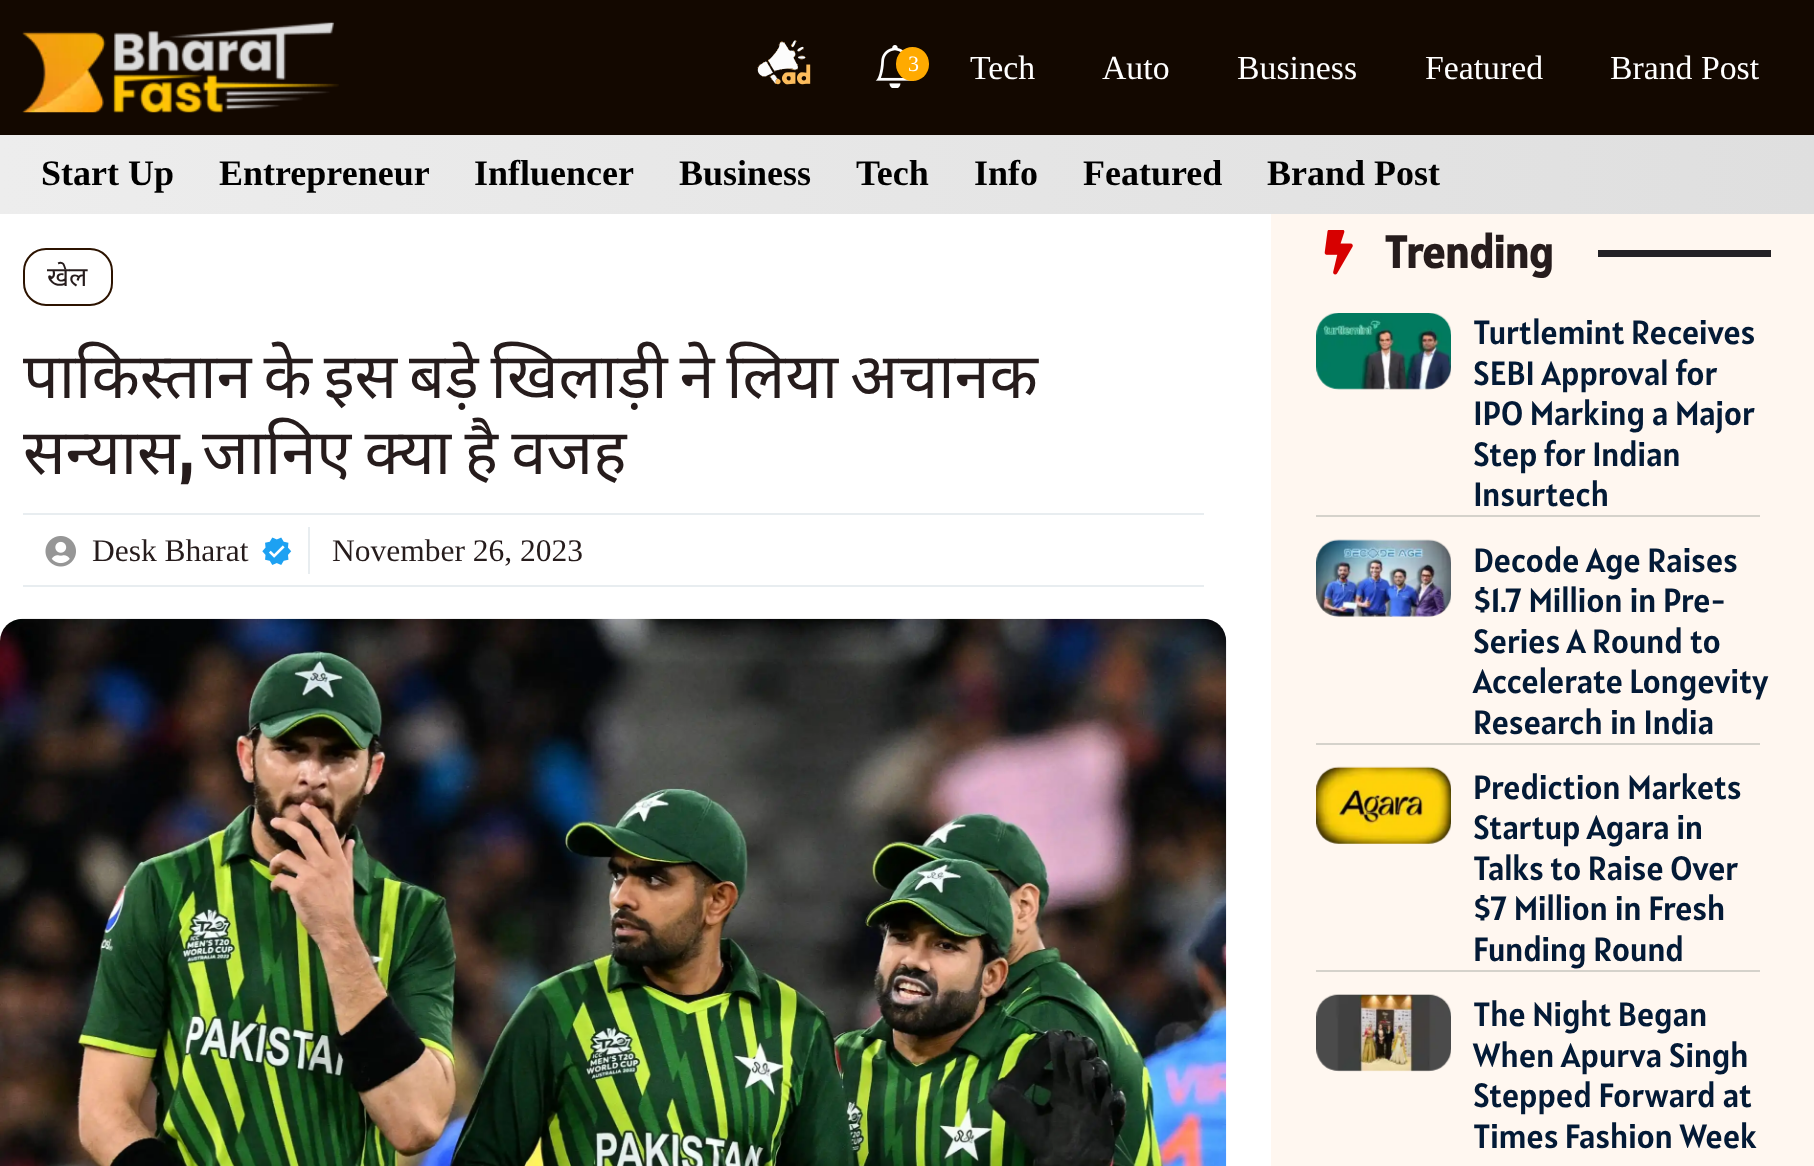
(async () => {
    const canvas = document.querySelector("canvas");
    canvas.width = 1814;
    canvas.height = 1166;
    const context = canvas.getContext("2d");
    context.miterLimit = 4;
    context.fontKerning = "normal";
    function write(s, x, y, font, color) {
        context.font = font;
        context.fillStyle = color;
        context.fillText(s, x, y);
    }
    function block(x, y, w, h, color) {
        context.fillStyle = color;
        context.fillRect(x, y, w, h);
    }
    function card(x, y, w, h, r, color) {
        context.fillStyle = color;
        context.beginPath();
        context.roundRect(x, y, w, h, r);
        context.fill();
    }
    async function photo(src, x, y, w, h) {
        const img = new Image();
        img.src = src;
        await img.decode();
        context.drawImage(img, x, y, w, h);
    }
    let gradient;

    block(0, 0, 1814, 1166, "rgb(255, 255, 255)");
    block(0, 0, 1814, 135, "rgb(19, 8, 0)");
    await photo("media/1.png", 22, 22, 317, 91);
    await photo("media/2.png", 757, 40, 54, 45);
    await photo("media/3.png", 875, 45, 39, 43);
    card(896, 47, 33, 34, 16.5, "rgb(255, 170, 0)");
    write("3", 908, 71, "22px Liberation Serif", "rgb(255, 255, 255)");
    write("Tech", 970, 79, "33.75px Liberation Serif", "rgb(255, 255, 255)");
    write("Auto", 1102, 79, "33.75px Liberation Serif", "rgb(255, 255, 255)");
    write("Business", 1237, 79, "33.75px Liberation Serif", "rgb(255, 255, 255)");
    write("Featured", 1425, 79, "33.75px Liberation Serif", "rgb(255, 255, 255)");
    write("Brand Post", 1610, 79, "33.75px Liberation Serif", "rgb(255, 255, 255)");
    gradient = context.createLinearGradient(0, 174, 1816, 174);
    gradient.addColorStop(0, "rgb(237, 237, 237)");
    gradient.addColorStop(1, "rgb(223, 223, 223)");
    context.fillStyle = gradient;
    context.fillRect(0, 135, 1814, 79);
    write("Start Up", 41, 185, "bold 36px Liberation Serif", "rgb(0, 0, 0)");
    write("Entrepreneur", 219, 185, "bold 36px Liberation Serif", "rgb(0, 0, 0)");
    write("Influencer", 474, 185, "bold 36px Liberation Serif", "rgb(0, 0, 0)");
    write("Business", 679, 185, "bold 36px Liberation Serif", "rgb(0, 0, 0)");
    write("Tech", 856, 185, "bold 36px Liberation Serif", "rgb(0, 0, 0)");
    write("Info", 974, 185, "bold 36px Liberation Serif", "rgb(0, 0, 0)");
    write("Featured", 1083, 185, "bold 36px Liberation Serif", "rgb(0, 0, 0)");
    write("Brand Post", 1267, 185, "bold 36px Liberation Serif", "rgb(0, 0, 0)");
    context.beginPath();
    context.roundRect(24, 249, 88, 56, 22);
    context.strokeStyle = "rgb(44, 19, 0)";
    context.lineWidth = 2;
    context.stroke();
    write("खेल", 47, 286, "27px Noto Sans", "rgb(38, 28, 28)");
    context.wordSpacing = "-4.5px";
    write("पाकिस्तान के इस बड़े खिलाड़ी ने लिया अचानक", 23, 398, "63px Noto Sans", "rgb(38, 28, 28)");
    context.wordSpacing = "0px";
    write("सन्यास", 23, 474, "63px Noto Sans", "rgb(38, 28, 28)");
    write(",", 179, 474, "bold 63px Alatsi", "rgb(38, 28, 28)");
    context.wordSpacing = "-3px";
    write("जानिए क्या है वजह", 202, 474, "63px Noto Sans", "rgb(38, 28, 28)");
    block(23, 513, 1181, 2, "rgb(232, 237, 240)");
    block(23, 585, 1181, 2, "rgb(232, 237, 240)");
    await photo("media/4.png", 45, 536, 31, 31);
    context.wordSpacing = "0px";
    write("Desk Bharat", 92, 561, "31.5px Liberation Serif", "rgb(38, 28, 28)");
    await photo("media/5.png", 262, 537, 30, 28);
    block(308, 527, 2, 47, "rgb(232, 237, 240)");
    write("November 26, 2023", 332, 561, "31.5px Liberation Serif", "rgb(38, 28, 28)");
    await photo("media/6.png", 0, 618, 1227, 548);
    block(1271, 214, 543, 952, "rgb(255, 247, 240)");
    await photo("media/7.png", 1324, 230, 29, 45);
    write("Trending", 1384, 268, "bold 45px Alatsi", "rgb(38, 28, 28)");
    block(1598, 250, 173, 7, "rgb(36, 34, 38)");
    block(1316, 515, 444, 2, "rgb(213, 210, 203)");
    await photo("media/8.png", 1316, 313, 135, 77);
    write("Turtlemint Receives", 1473, 344, "33.75px Alatsi", "rgb(3, 26, 54)");
    write("SEBI Approval for", 1473, 385, "33.75px Alatsi", "rgb(3, 26, 54)");
    write("IPO Marking a Major", 1473, 425, "33.75px Alatsi", "rgb(3, 26, 54)");
    write("Step for Indian", 1473, 466, "33.75px Alatsi", "rgb(3, 26, 54)");
    write("Insurtech", 1473, 506, "33.75px Alatsi", "rgb(3, 26, 54)");
    block(1316, 743, 444, 2, "rgb(213, 210, 203)");
    await photo("media/9.png", 1316, 539, 135, 78);
    write("Decode Age Raises", 1473, 572, "33.75px Alatsi", "rgb(3, 26, 54)");
    write("$1.7 Million in Pre-", 1473, 612, "33.75px Alatsi", "rgb(3, 26, 54)");
    write("Series A Round to", 1473, 653, "33.75px Alatsi", "rgb(3, 26, 54)");
    write("Accelerate Longevity", 1473, 693, "33.75px Alatsi", "rgb(3, 26, 54)");
    write("Research in India", 1473, 734, "33.75px Alatsi", "rgb(3, 26, 54)");
    block(1316, 970, 444, 2, "rgb(213, 210, 203)");
    await photo("media/10.png", 1316, 766, 135, 78);
    write("Prediction Markets", 1473, 799, "33.75px Alatsi", "rgb(3, 26, 54)");
    write("Startup Agara in", 1473, 839, "33.75px Alatsi", "rgb(3, 26, 54)");
    write("Talks to Raise Over", 1473, 880, "33.75px Alatsi", "rgb(3, 26, 54)");
    write("$7 Million in Fresh", 1473, 920, "33.75px Alatsi", "rgb(3, 26, 54)");
    write("Funding Round", 1473, 961, "33.75px Alatsi", "rgb(3, 26, 54)");
    await photo("media/11.png", 1316, 994, 135, 78);
    write("The Night Began", 1473, 1026, "33.75px Alatsi", "rgb(3, 26, 54)");
    write("When Apurva Singh", 1473, 1067, "33.75px Alatsi", "rgb(3, 26, 54)");
    write("Stepped Forward at", 1473, 1107, "33.75px Alatsi", "rgb(3, 26, 54)");
    write("Times Fashion Week", 1473, 1148, "33.75px Alatsi", "rgb(3, 26, 54)");
})();
